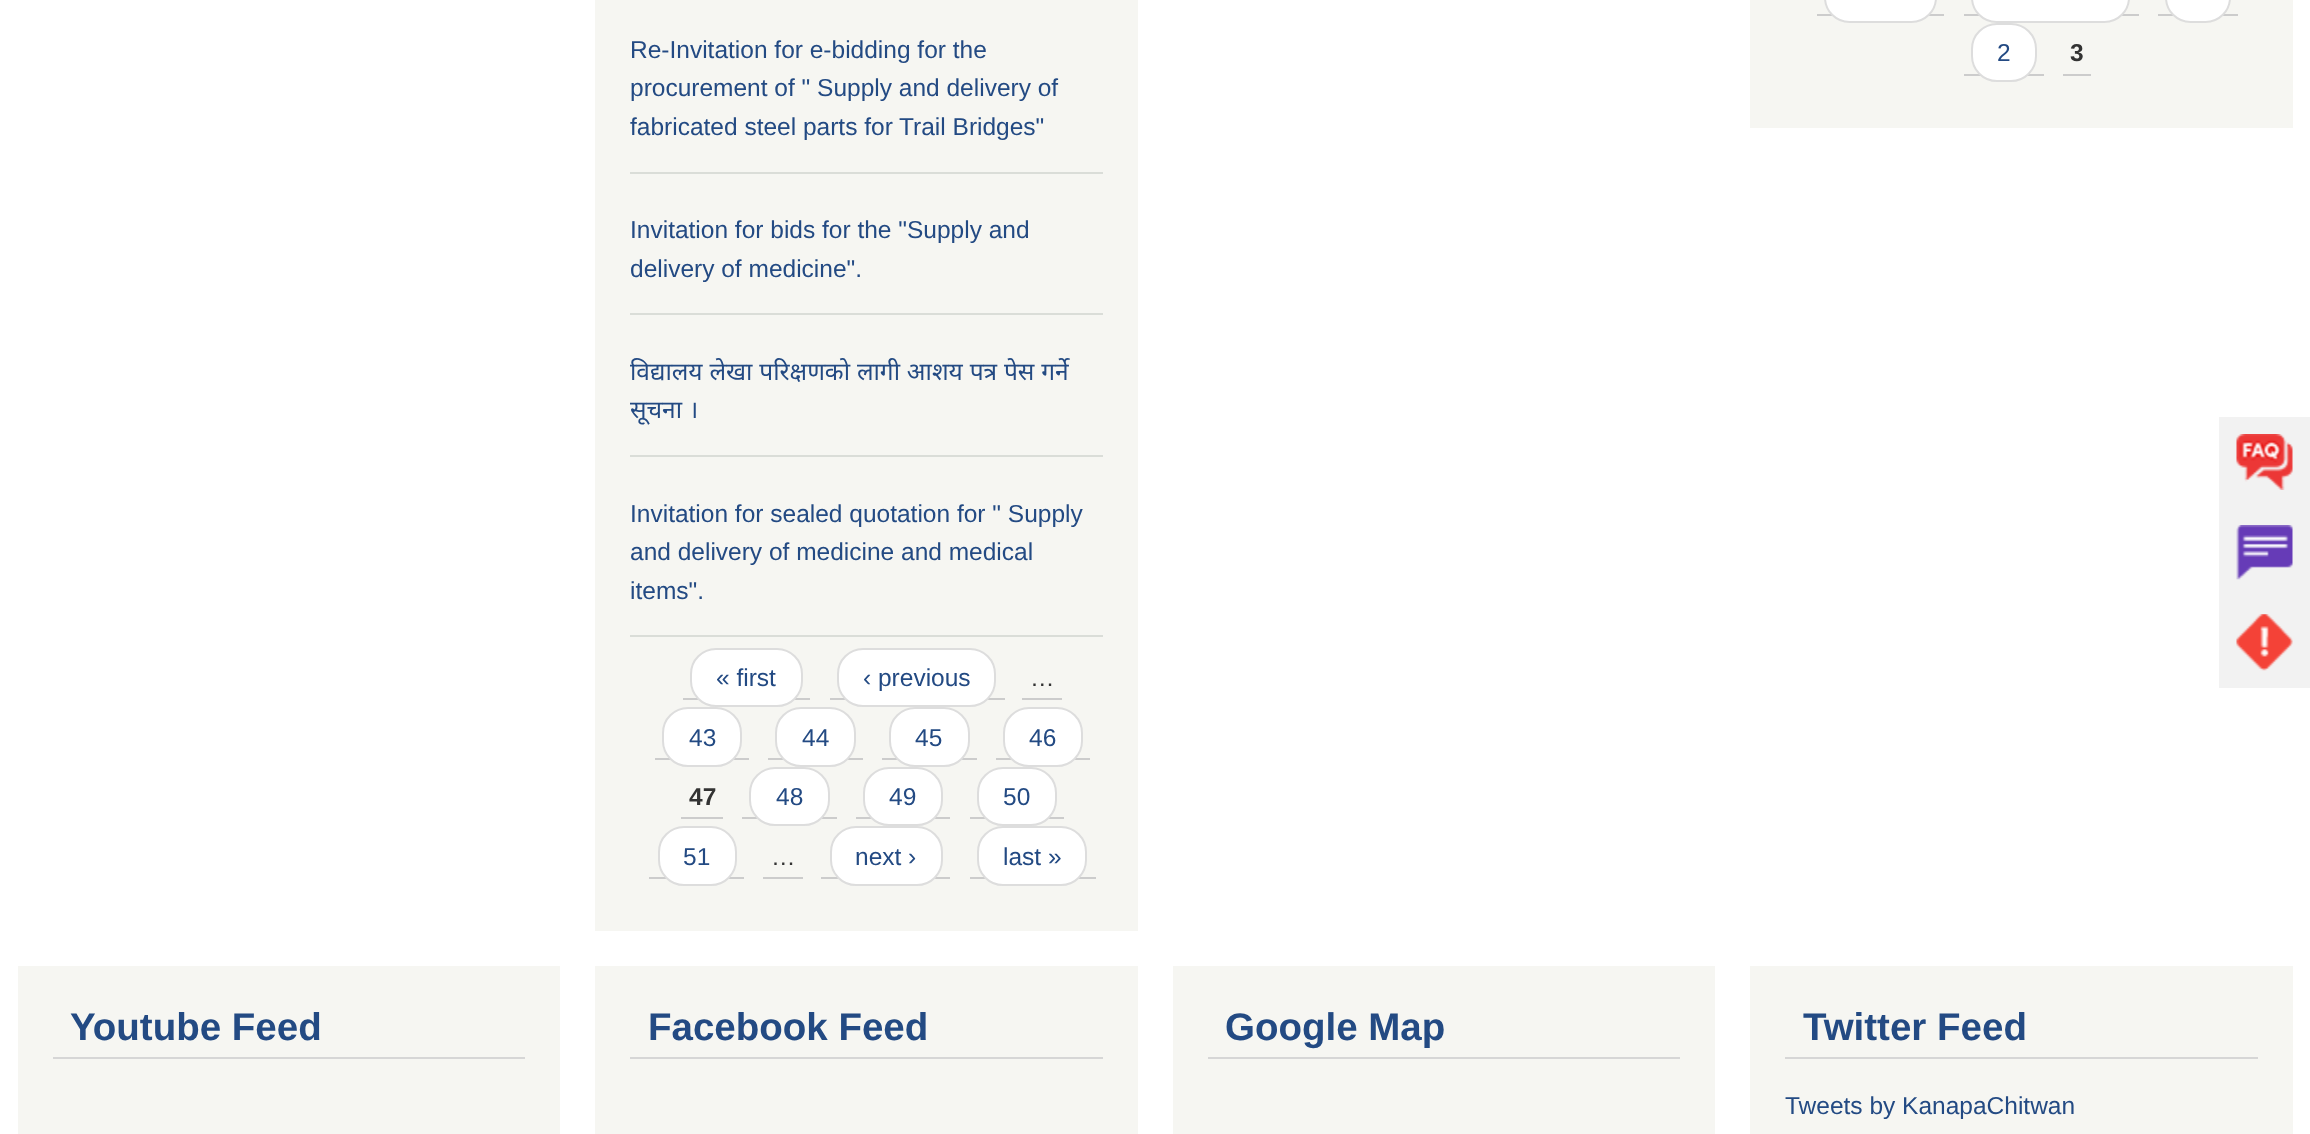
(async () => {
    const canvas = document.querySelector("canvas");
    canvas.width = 2310;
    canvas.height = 1134;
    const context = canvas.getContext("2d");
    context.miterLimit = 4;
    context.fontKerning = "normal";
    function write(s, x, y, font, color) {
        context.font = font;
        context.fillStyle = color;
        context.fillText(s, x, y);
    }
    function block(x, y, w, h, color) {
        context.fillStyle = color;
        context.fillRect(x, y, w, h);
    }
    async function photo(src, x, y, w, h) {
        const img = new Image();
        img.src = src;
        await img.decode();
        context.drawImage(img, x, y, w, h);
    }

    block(0, 0, 2310, 1134, "rgb(255, 255, 255)");
    block(595, 0, 543, 931, "rgb(246, 246, 242)");
    block(630, 172, 473, 2, "rgb(218, 221, 216)");
    write("Re-Invitation for e-bidding for the", 630, 58, "24.5px Liberation Sans", "rgb(35, 74, 131)");
    write("procurement of \" Supply and delivery of", 630, 96, "24.5px Liberation Sans", "rgb(35, 74, 131)");
    write("fabricated steel parts for", 630, 135, "24.5px Liberation Sans", "rgb(35, 74, 131)");
    write("Trail Bridges\"", 899, 135, "24.5px Liberation Sans", "rgb(35, 74, 131)");
    block(630, 313, 473, 2, "rgb(218, 221, 216)");
    write("Invitation for bids for the \"Supply and", 630, 238, "24.5px Liberation Sans", "rgb(35, 74, 131)");
    write("delivery of medicine\".", 630, 277, "24.5px Liberation Sans", "rgb(35, 74, 131)");
    block(630, 455, 473, 2, "rgb(218, 221, 216)");
    context.wordSpacing = "0.5px";
    write("विद्यालय लेखा परिक्षणको लागी आशय पत्र पेस गर्ने", 630, 380, "24.5px Noto Sans", "rgb(35, 74, 131)");
    write("सूचना ।", 630, 418, "24.5px Noto Sans", "rgb(35, 74, 131)");
    block(630, 635, 473, 2, "rgb(218, 221, 216)");
    context.wordSpacing = "0px";
    write("Invitation for sealed quotation for \" Supply", 630, 522, "24.5px Liberation Sans", "rgb(35, 74, 131)");
    write("and delivery of medicine and medical", 630, 560, "24.5px Liberation Sans", "rgb(35, 74, 131)");
    write("items\".", 630, 599, "24.5px Liberation Sans", "rgb(35, 74, 131)");
    block(683, 698, 127, 2, "rgb(204, 204, 204)");
    context.fillStyle = "rgb(255, 255, 255)";
    context.beginPath();
    context.roundRect(691, 649, 111, 57, 25);
    context.fill();
    context.strokeStyle = "rgb(221, 221, 221)";
    context.lineWidth = 2;
    context.stroke();
    write("« first", 716, 686, "24.5px Liberation Sans", "rgb(35, 74, 131)");
    block(830, 698, 175, 2, "rgb(204, 204, 204)");
    context.fillStyle = "rgb(255, 255, 255)";
    context.beginPath();
    context.roundRect(838, 649, 157, 57, 25);
    context.fill();
    context.stroke();
    write("‹ previous", 863, 686, "24.5px Liberation Sans", "rgb(35, 74, 131)");
    write("…", 1030, 686, "24.5px Liberation Sans", "rgb(51, 51, 51)");
    block(1022, 698, 40, 2, "rgb(204, 204, 204)");
    block(655, 758, 94, 2, "rgb(204, 204, 204)");
    context.fillStyle = "rgb(255, 255, 255)";
    context.beginPath();
    context.roundRect(663, 708, 78, 58, 25);
    context.fill();
    context.stroke();
    write("43", 689, 746, "24.5px Liberation Sans", "rgb(35, 74, 131)");
    block(768, 758, 95, 2, "rgb(204, 204, 204)");
    context.fillStyle = "rgb(255, 255, 255)";
    context.beginPath();
    context.roundRect(776, 708, 79, 58, 25);
    context.fill();
    context.stroke();
    write("44", 802, 746, "24.5px Liberation Sans", "rgb(35, 74, 131)");
    block(882, 758, 95, 2, "rgb(204, 204, 204)");
    context.fillStyle = "rgb(255, 255, 255)";
    context.beginPath();
    context.roundRect(890, 708, 79, 58, 25);
    context.fill();
    context.stroke();
    write("45", 915, 746, "24.5px Liberation Sans", "rgb(35, 74, 131)");
    block(996, 758, 94, 2, "rgb(204, 204, 204)");
    context.fillStyle = "rgb(255, 255, 255)";
    context.beginPath();
    context.roundRect(1004, 708, 78, 58, 25);
    context.fill();
    context.stroke();
    write("46", 1029, 746, "24.5px Liberation Sans", "rgb(35, 74, 131)");
    write("47", 689, 805, "bold 24.5px Liberation Sans", "rgb(51, 51, 51)");
    block(681, 817, 42, 2, "rgb(204, 204, 204)");
    block(742, 817, 95, 2, "rgb(204, 204, 204)");
    context.fillStyle = "rgb(255, 255, 255)";
    context.beginPath();
    context.roundRect(750, 768, 79, 57, 25);
    context.fill();
    context.stroke();
    write("48", 776, 805, "24.5px Liberation Sans", "rgb(35, 74, 131)");
    block(856, 817, 94, 2, "rgb(204, 204, 204)");
    context.fillStyle = "rgb(255, 255, 255)";
    context.beginPath();
    context.roundRect(864, 768, 78, 57, 25);
    context.fill();
    context.stroke();
    write("49", 889, 805, "24.5px Liberation Sans", "rgb(35, 74, 131)");
    block(970, 817, 94, 2, "rgb(204, 204, 204)");
    context.fillStyle = "rgb(255, 255, 255)";
    context.beginPath();
    context.roundRect(978, 768, 78, 57, 25);
    context.fill();
    context.stroke();
    write("50", 1003, 805, "24.5px Liberation Sans", "rgb(35, 74, 131)");
    block(649, 877, 95, 2, "rgb(204, 204, 204)");
    context.fillStyle = "rgb(255, 255, 255)";
    context.beginPath();
    context.roundRect(659, 827, 77, 58, 25);
    context.fill();
    context.stroke();
    write("51", 683, 865, "24.5px Liberation Sans", "rgb(35, 74, 131)");
    write("…", 771, 865, "24.5px Liberation Sans", "rgb(51, 51, 51)");
    block(763, 877, 40, 2, "rgb(204, 204, 204)");
    block(821, 877, 129, 2, "rgb(204, 204, 204)");
    context.fillStyle = "rgb(255, 255, 255)";
    context.beginPath();
    context.roundRect(831, 827, 111, 58, 25);
    context.fill();
    context.stroke();
    write("next ›", 855, 865, "24.5px Liberation Sans", "rgb(35, 74, 131)");
    block(970, 877, 126, 2, "rgb(204, 204, 204)");
    context.fillStyle = "rgb(255, 255, 255)";
    context.beginPath();
    context.roundRect(978, 827, 108, 58, 25);
    context.fill();
    context.stroke();
    write("last »", 1003, 865, "24.5px Liberation Sans", "rgb(35, 74, 131)");
    block(1750, 0, 543, 128, "rgb(246, 246, 242)");
    block(1817, 14, 127, 2, "rgb(204, 204, 204)");
    context.fillStyle = "rgb(255, 255, 255)";
    context.beginPath();
    context.roundRect(1825, -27, 111, 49, 25);
    context.fill();
    context.stroke();
    block(1964, 14, 175, 2, "rgb(204, 204, 204)");
    context.fillStyle = "rgb(255, 255, 255)";
    context.beginPath();
    context.roundRect(1972, -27, 157, 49, 25);
    context.fill();
    context.stroke();
    block(2158, 14, 80, 2, "rgb(204, 204, 204)");
    context.fillStyle = "rgb(255, 255, 255)";
    context.beginPath();
    context.roundRect(2166, -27, 64, 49, 25);
    context.fill();
    context.stroke();
    block(1964, 74, 80, 2, "rgb(204, 204, 204)");
    context.fillStyle = "rgb(255, 255, 255)";
    context.beginPath();
    context.roundRect(1972, 24, 64, 57, 25);
    context.fill();
    context.stroke();
    write("2", 1997, 61, "24.5px Liberation Sans", "rgb(35, 74, 131)");
    write("3", 2070, 61, "bold 24.5px Liberation Sans", "rgb(51, 51, 51)");
    block(2063, 74, 28, 2, "rgb(204, 204, 204)");
    block(18, 966, 542, 168, "rgb(246, 246, 242)");
    block(53, 1057, 472, 2, "rgb(214, 214, 214)");
    write("Youtube Feed", 70, 1040, "bold 38.5px Liberation Sans", "rgb(35, 74, 131)");
    block(595, 966, 543, 168, "rgb(246, 246, 242)");
    block(630, 1057, 473, 2, "rgb(214, 214, 214)");
    write("Facebook Feed", 648, 1040, "bold 38.5px Liberation Sans", "rgb(35, 74, 131)");
    block(1173, 966, 542, 168, "rgb(246, 246, 242)");
    block(1208, 1057, 472, 2, "rgb(214, 214, 214)");
    write("Google Map", 1225, 1040, "bold 38.5px Liberation Sans", "rgb(35, 74, 131)");
    block(1750, 966, 543, 168, "rgb(246, 246, 242)");
    block(1785, 1057, 473, 2, "rgb(214, 214, 214)");
    write("Twitter Feed", 1803, 1040, "bold 38.5px Liberation Sans", "rgb(35, 74, 131)");
    write("Tweets by KanapaChitwan", 1785, 1114, "24.5px Liberation Sans", "rgb(35, 74, 131)");
    block(2219, 417, 91, 271, "rgb(242, 242, 242)");
    await photo("media/1.png", 2236, 434, 57, 56);
    await photo("media/2.png", 2236, 525, 57, 55);
    await photo("media/3.png", 2236, 614, 57, 57);
})();
